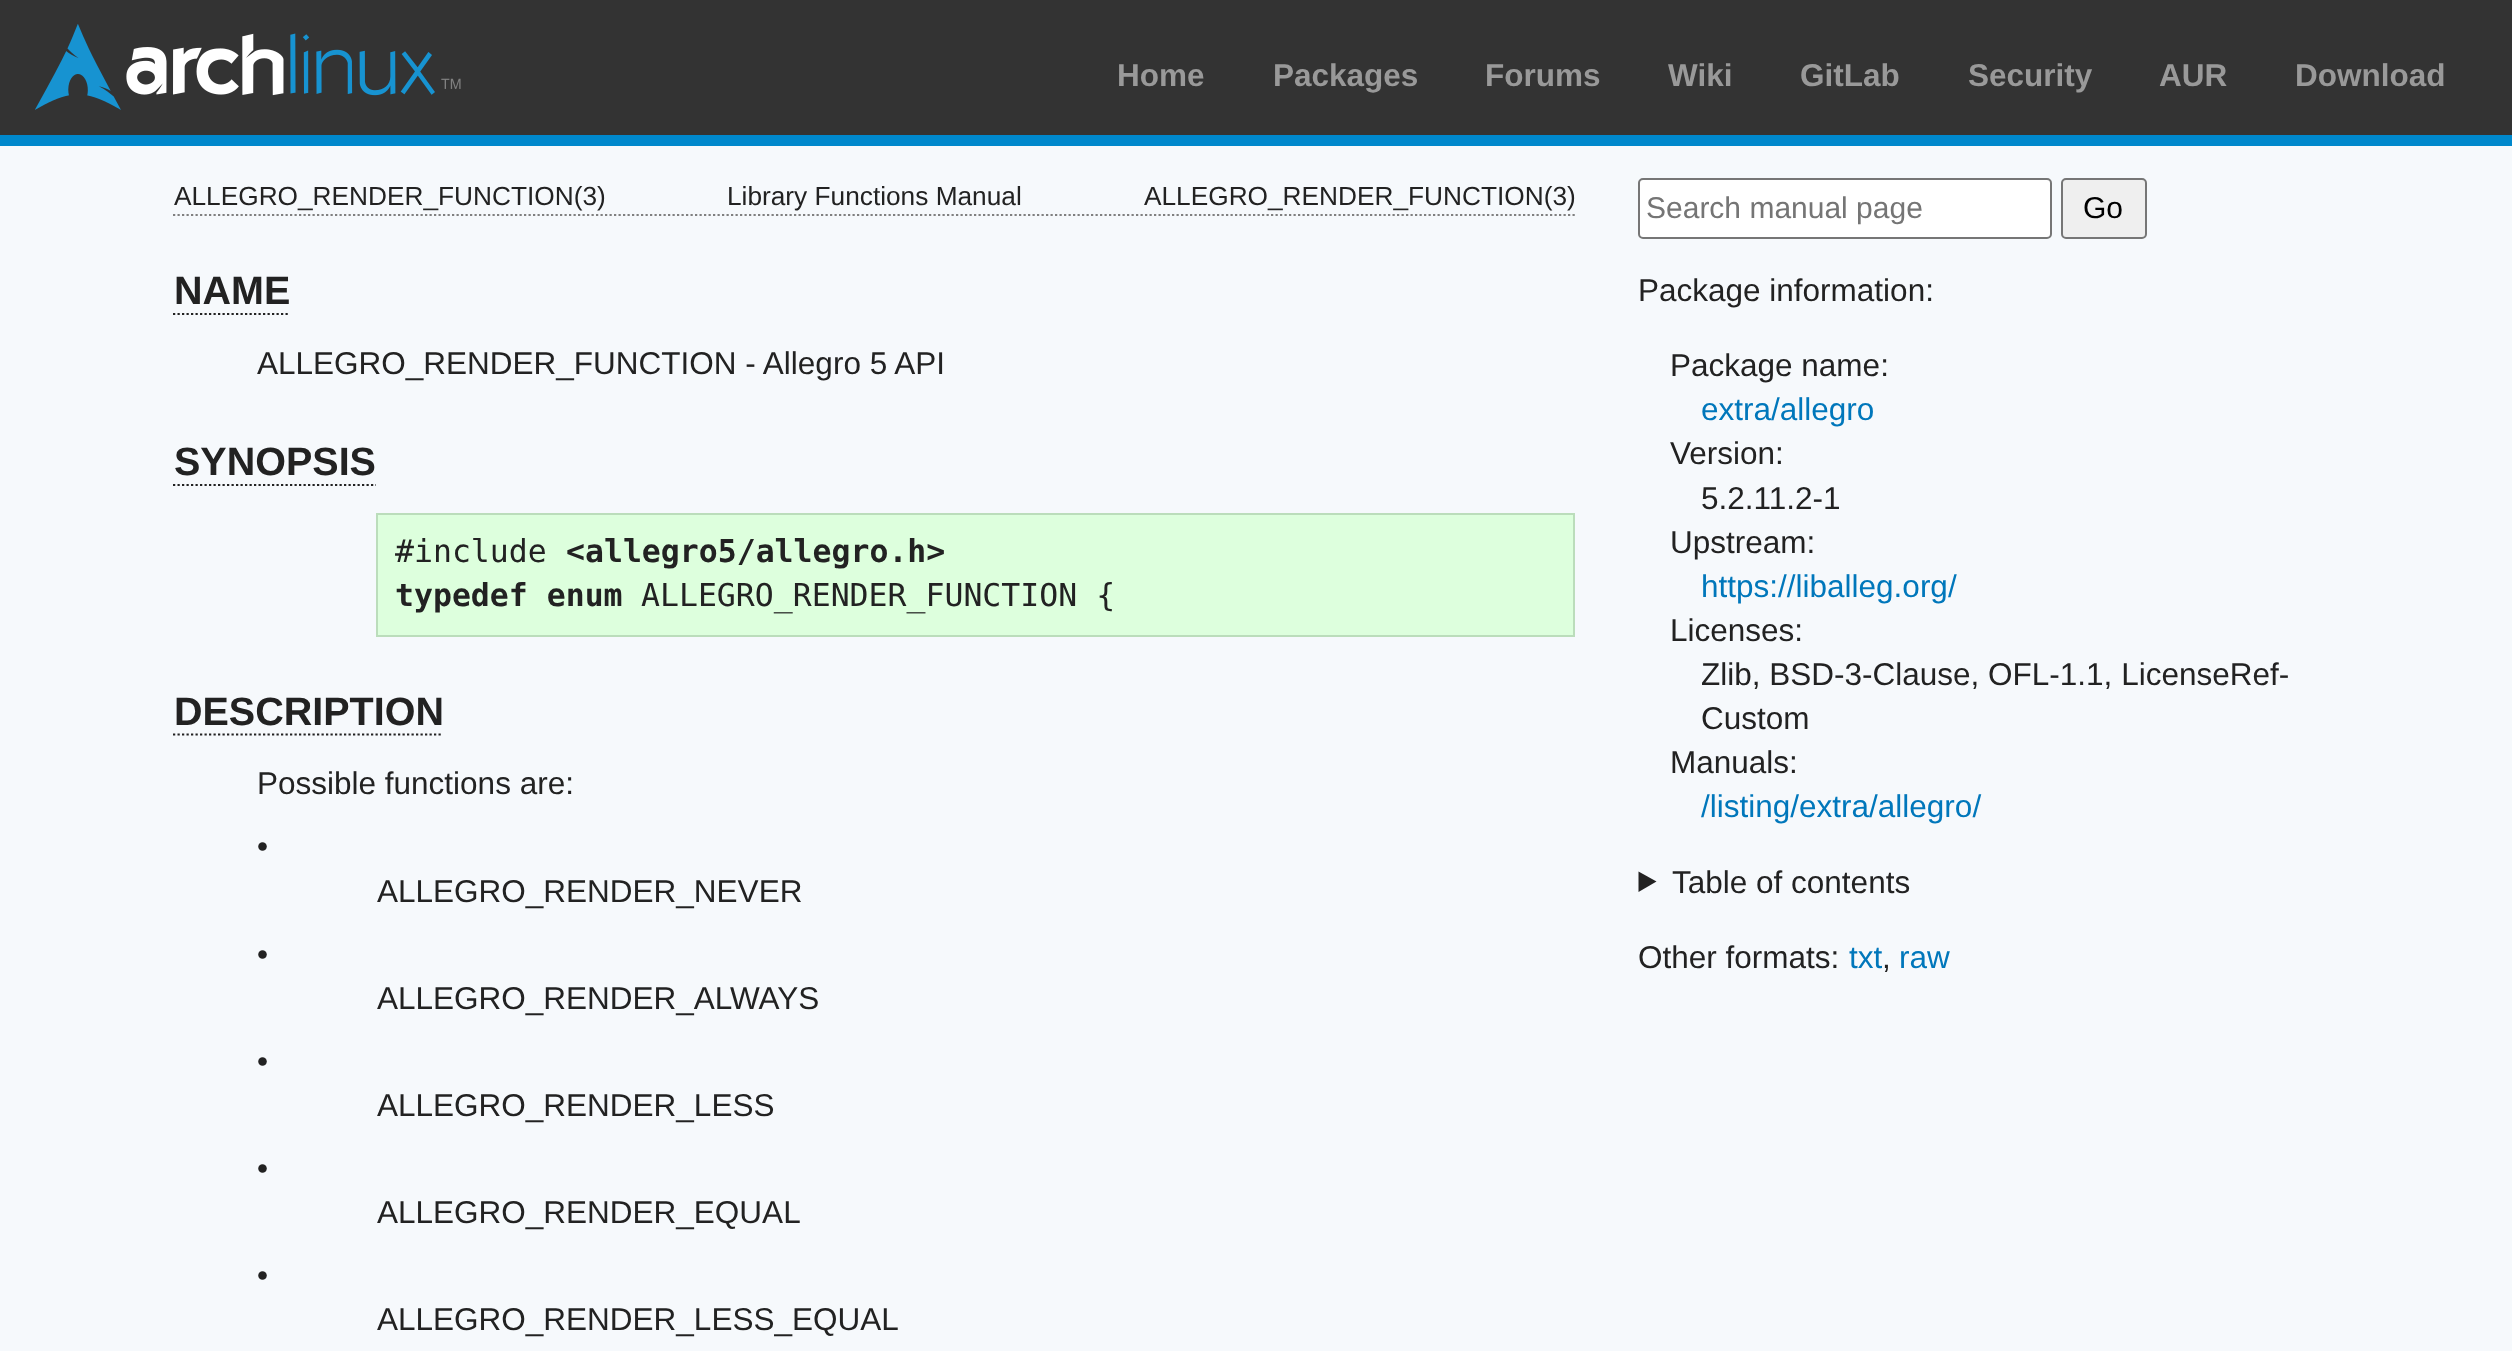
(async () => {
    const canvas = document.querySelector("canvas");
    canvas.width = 2512;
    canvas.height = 1351;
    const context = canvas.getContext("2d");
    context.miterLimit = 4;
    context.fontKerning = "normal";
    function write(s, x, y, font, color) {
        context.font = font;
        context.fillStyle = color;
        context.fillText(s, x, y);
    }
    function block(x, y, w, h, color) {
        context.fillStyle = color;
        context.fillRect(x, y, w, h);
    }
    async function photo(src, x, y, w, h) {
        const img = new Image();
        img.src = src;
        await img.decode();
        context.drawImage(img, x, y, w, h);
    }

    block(0, 0, 2512, 1351, "rgb(246, 249, 252)");
    block(0, 0, 2512, 135, "rgb(51, 51, 51)");
    block(0, 135, 2512, 11, "rgb(0, 136, 204)");
    await photo("media/1.png", 35, 24, 426, 86);
    write("Home", 1117, 86, "bold 31.5px Liberation Sans", "rgb(153, 153, 153)");
    write("Packages", 1273, 86, "bold 31.5px Liberation Sans", "rgb(153, 153, 153)");
    write("Forums", 1485, 86, "bold 31.5px Liberation Sans", "rgb(153, 153, 153)");
    write("Wiki", 1668, 86, "bold 31.5px Liberation Sans", "rgb(153, 153, 153)");
    write("GitLab", 1800, 86, "bold 31.5px Liberation Sans", "rgb(153, 153, 153)");
    write("Security", 1968, 86, "bold 31.5px Liberation Sans", "rgb(153, 153, 153)");
    write("AUR", 2159, 86, "bold 31.5px Liberation Sans", "rgb(153, 153, 153)");
    write("Download", 2295, 86, "bold 31.5px Liberation Sans", "rgb(153, 153, 153)");
    context.beginPath();
    context.moveTo(173, 215);
    context.lineTo(1575, 215);
    context.strokeStyle = "rgb(128, 128, 128)";
    context.lineWidth = 2.2;
    context.setLineDash([2.25, 2.25]);
    context.stroke();
    write("ALLEGRO_RENDER_FUNCTION(3)", 174, 205, "26.25px Liberation Sans", "rgb(34, 34, 34)");
    write("Library Functions Manual", 727, 205, "26.25px Liberation Sans", "rgb(34, 34, 34)");
    write("ALLEGRO_RENDER_FUNCTION(3)", 1144, 205, "26.25px Liberation Sans", "rgb(34, 34, 34)");
    write("NAME", 174, 304, "bold 39.5px Liberation Sans", "rgb(34, 34, 34)");
    context.beginPath();
    context.moveTo(173, 314);
    context.lineTo(290, 314);
    context.strokeStyle = "rgb(34, 34, 34)";
    context.stroke();
    write("ALLEGRO_RENDER_FUNCTION - Allegro 5 API", 257, 374, "31.5px Liberation Sans", "rgb(34, 34, 34)");
    write("SYNOPSIS", 174, 475, "bold 39.5px Liberation Sans", "rgb(34, 34, 34)");
    context.beginPath();
    context.moveTo(173, 485);
    context.lineTo(376, 485);
    context.stroke();
    context.fillStyle = "rgb(221, 255, 221)";
    context.beginPath();
    context.rect(377, 514, 1197, 122);
    context.fill();
    context.strokeStyle = "rgb(187, 221, 187)";
    context.lineWidth = 2;
    context.setLineDash([]);
    context.stroke();
    write("#include", 395, 562, "31.5px DejaVu Sans Mono", "rgb(34, 34, 34)");
    write("<allegro5/allegro.h>", 566, 562, "bold 31.5px DejaVu Sans Mono", "rgb(34, 34, 34)");
    write("typedef enum", 395, 606, "bold 31.5px DejaVu Sans Mono", "rgb(34, 34, 34)");
    write("ALLEGRO_RENDER_FUNCTION {", 641, 606, "31.5px DejaVu Sans Mono", "rgb(34, 34, 34)");
    write("DESCRIPTION", 174, 725, "bold 39.5px Liberation Sans", "rgb(34, 34, 34)");
    context.beginPath();
    context.moveTo(173, 734.5);
    context.lineTo(443, 734.5);
    context.strokeStyle = "rgb(34, 34, 34)";
    context.lineWidth = 2.2;
    context.setLineDash([2.25, 2.25]);
    context.stroke();
    write("Possible functions are:", 257, 794, "31.5px Liberation Sans", "rgb(34, 34, 34)");
    write("•", 257, 857, "31.5px Liberation Sans", "rgb(34, 34, 34)");
    write("ALLEGRO_RENDER_NEVER", 377, 902, "31.5px Liberation Sans", "rgb(34, 34, 34)");
    write("•", 257, 965, "31.5px Liberation Sans", "rgb(34, 34, 34)");
    write("ALLEGRO_RENDER_ALWAYS", 377, 1009, "31.5px Liberation Sans", "rgb(34, 34, 34)");
    write("•", 257, 1072, "31.5px Liberation Sans", "rgb(34, 34, 34)");
    write("ALLEGRO_RENDER_LESS", 377, 1116, "31.5px Liberation Sans", "rgb(34, 34, 34)");
    write("•", 257, 1179, "31.5px Liberation Sans", "rgb(34, 34, 34)");
    write("ALLEGRO_RENDER_EQUAL", 377, 1223, "31.5px Liberation Sans", "rgb(34, 34, 34)");
    write("•", 257, 1286, "31.5px Liberation Sans", "rgb(34, 34, 34)");
    write("ALLEGRO_RENDER_LESS_EQUAL", 377, 1330, "31.5px Liberation Sans", "rgb(34, 34, 34)");
    context.fillStyle = "rgb(255, 255, 255)";
    context.beginPath();
    context.roundRect(1639, 179, 412, 59, 4);
    context.fill();
    context.strokeStyle = "rgb(118, 118, 118)";
    context.lineWidth = 2;
    context.setLineDash([]);
    context.stroke();
    write("Search manual page", 1646, 218, "30px Liberation Sans", "rgb(117, 117, 117)");
    context.fillStyle = "rgb(239, 239, 239)";
    context.beginPath();
    context.roundRect(2062, 179, 84, 59, 4);
    context.fill();
    context.stroke();
    write("Go", 2083, 218, "30px Liberation Sans", "rgb(0, 0, 0)");
    write("Package information:", 1638, 301, "31.5px Liberation Sans", "rgb(34, 34, 34)");
    write("Package name:", 1670, 376, "31.5px Liberation Sans", "rgb(34, 34, 34)");
    write("extra/allegro", 1701, 420, "31.5px Liberation Sans", "rgb(0, 119, 187)");
    write("Version:", 1670, 464, "31.5px Liberation Sans", "rgb(34, 34, 34)");
    write("5.2.11.2-1", 1701, 509, "31.5px Liberation Sans", "rgb(34, 34, 34)");
    write("Upstream:", 1670, 553, "31.5px Liberation Sans", "rgb(34, 34, 34)");
    write("https://liballeg.org/", 1701, 597, "31.5px Liberation Sans", "rgb(0, 119, 187)");
    write("Licenses:", 1670, 641, "31.5px Liberation Sans", "rgb(34, 34, 34)");
    write("Zlib, BSD-3-Clause, OFL-1.1, LicenseRef-", 1701, 685, "31.5px Liberation Sans", "rgb(34, 34, 34)");
    write("Custom", 1701, 729, "31.5px Liberation Sans", "rgb(34, 34, 34)");
    write("Manuals:", 1670, 773, "31.5px Liberation Sans", "rgb(34, 34, 34)");
    write("/listing/extra/allegro/", 1701, 817, "31.5px Liberation Sans", "rgb(0, 119, 187)");
    context.fillStyle = "rgb(34, 34, 34)";
    context.beginPath();
    context.moveTo(1638.5, 871.5);
    context.lineTo(1656.5, 881.5);
    context.lineTo(1638.5, 892);
    context.closePath();
    context.fill();
    write("Table of contents", 1672, 893, "31.5px Liberation Sans", "rgb(34, 34, 34)");
    write("Other formats:", 1638, 968, "31.5px Liberation Sans", "rgb(34, 34, 34)");
    write("txt", 1849, 968, "31.5px Liberation Sans", "rgb(0, 119, 187)");
    write(",", 1882, 968, "31.5px Liberation Sans", "rgb(34, 34, 34)");
    write("raw", 1899, 968, "31.5px Liberation Sans", "rgb(0, 119, 187)");
})();
